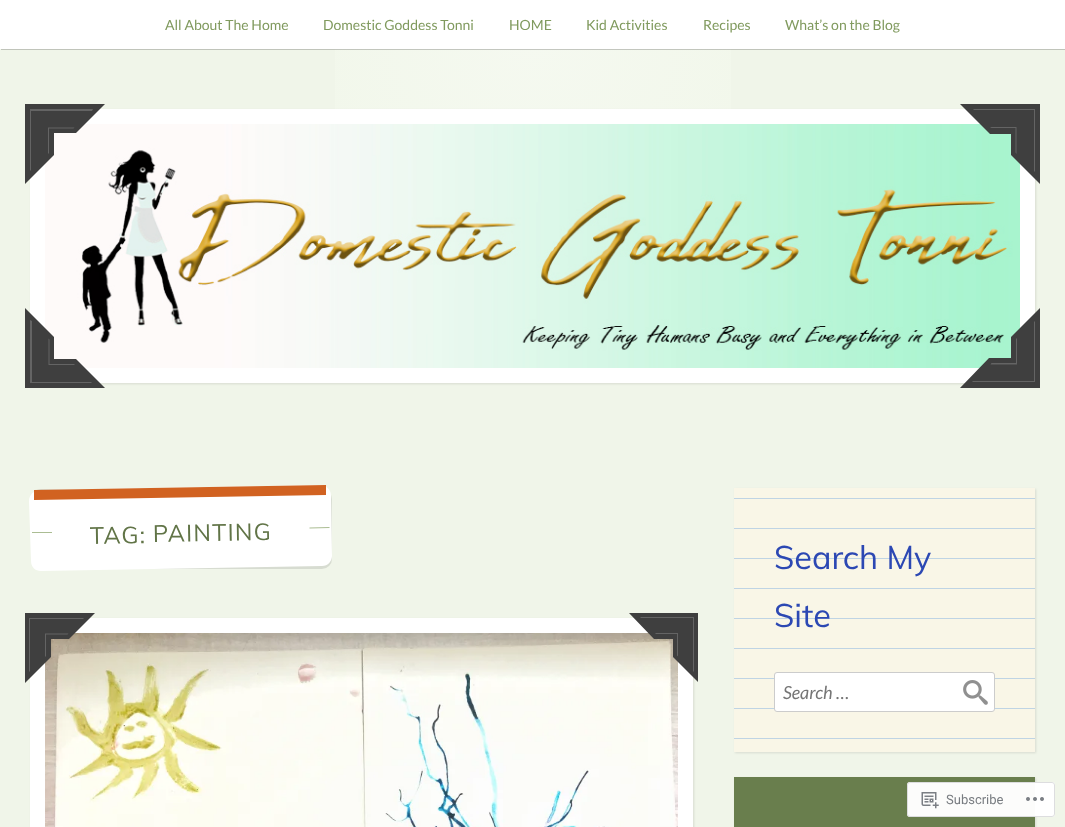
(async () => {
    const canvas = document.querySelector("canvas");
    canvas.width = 1065;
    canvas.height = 827;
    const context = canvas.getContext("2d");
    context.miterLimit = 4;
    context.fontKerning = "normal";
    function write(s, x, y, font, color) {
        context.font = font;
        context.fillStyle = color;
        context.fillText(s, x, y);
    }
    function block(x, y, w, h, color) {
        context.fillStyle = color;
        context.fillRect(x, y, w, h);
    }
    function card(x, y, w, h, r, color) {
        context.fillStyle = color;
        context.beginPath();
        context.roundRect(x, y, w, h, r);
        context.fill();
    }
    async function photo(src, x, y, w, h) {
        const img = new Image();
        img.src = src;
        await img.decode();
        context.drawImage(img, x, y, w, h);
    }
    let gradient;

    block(0, 0, 1065, 827, "rgb(240, 245, 233)");
    gradient = context.createRadialGradient(533, 40, 0, 533, 40, 707);
    gradient.addColorStop(0, "rgb(245, 249, 240)");
    gradient.addColorStop(0.5, "rgb(240, 246, 232)");
    gradient.addColorStop(1, "rgb(240, 246, 232)");
    context.fillStyle = gradient;
    context.fillRect(335, 49, 396, 190);
    context.fillStyle = "rgba(0, 0, 0, 0.2)";
    context.filter = "blur(0.5px)";
    context.beginPath();
    context.rect(1, 1, 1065, 49);
    context.fill();
    context.filter = "none";
    block(0, 0, 1065, 49, "rgb(255, 255, 255)");
    write("All About The Home", 165, 30, "14px Lato", "rgb(128, 154, 94)");
    write("Domestic Goddess Tonni", 323, 30, "14px Lato", "rgb(128, 154, 94)");
    write("HOME", 509, 30, "14px Lato", "rgb(128, 154, 94)");
    write("Kid Activities", 586, 30, "14px Lato", "rgb(128, 154, 94)");
    write("Recipes", 703, 30, "14px Lato", "rgb(128, 154, 94)");
    write("What’s on the Blog", 785, 30, "14px Lato", "rgb(128, 154, 94)");
    context.fillStyle = "rgba(0, 0, 0, 0.1)";
    context.filter = "blur(1px)";
    context.beginPath();
    context.rect(31, 110, 1005, 274);
    context.fill();
    context.filter = "none";
    block(30, 109, 1005, 274, "rgb(255, 255, 255)");
    await photo("media/1.png", 45, 124, 975, 244);
    context.fillStyle = "rgb(63, 63, 63)";
    context.beginPath();
    context.moveTo(54, 133);
    context.lineTo(76, 133);
    context.lineTo(105, 104);
    context.lineTo(25, 104);
    context.lineTo(25, 184);
    context.lineTo(54, 155);
    context.closePath();
    context.fill();
    context.fillStyle = "rgb(100, 100, 100)";
    context.beginPath();
    context.moveTo(63, 109);
    context.lineTo(30, 109);
    context.lineTo(30, 171);
    context.lineTo(31, 170);
    context.lineTo(31, 111);
    context.lineTo(92, 111);
    context.lineTo(93, 109);
    context.closePath();
    context.fill();
    context.beginPath();
    context.moveTo(49, 127.5);
    context.lineTo(48, 127.5);
    context.lineTo(48, 154);
    context.lineTo(49, 153);
    context.lineTo(49, 128.5);
    context.lineTo(73.5, 128.5);
    context.lineTo(74.5, 127.5);
    context.closePath();
    context.fill();
    context.fillStyle = "rgb(63, 63, 63)";
    context.beginPath();
    context.moveTo(1011, 134);
    context.lineTo(990, 134);
    context.lineTo(960, 104);
    context.lineTo(1040, 104);
    context.lineTo(1040, 184);
    context.lineTo(1011, 155);
    context.closePath();
    context.fill();
    context.fillStyle = "rgb(100, 100, 100)";
    context.beginPath();
    context.moveTo(1035, 142);
    context.lineTo(1035, 109);
    context.lineTo(973, 109);
    context.lineTo(974, 110);
    context.lineTo(1034, 110);
    context.lineTo(1034, 171);
    context.lineTo(1035, 172);
    context.closePath();
    context.fill();
    context.beginPath();
    context.moveTo(1016.5, 128);
    context.lineTo(1016.5, 127);
    context.lineTo(990, 127);
    context.lineTo(991.5, 128);
    context.lineTo(1015.5, 128);
    context.lineTo(1015.5, 152.5);
    context.lineTo(1016.5, 154);
    context.closePath();
    context.fill();
    context.fillStyle = "rgb(63, 63, 63)";
    context.beginPath();
    context.moveTo(54, 359);
    context.lineTo(54, 337);
    context.lineTo(25, 308);
    context.lineTo(25, 388);
    context.lineTo(105, 388);
    context.lineTo(76, 359);
    context.closePath();
    context.fill();
    context.fillStyle = "rgb(100, 100, 100)";
    context.beginPath();
    context.moveTo(30, 350);
    context.lineTo(30, 383);
    context.lineTo(92, 383);
    context.lineTo(91, 382);
    context.lineTo(32, 382);
    context.lineTo(32, 321);
    context.lineTo(30, 320);
    context.closePath();
    context.fill();
    context.beginPath();
    context.moveTo(48.5, 364);
    context.lineTo(48.5, 365);
    context.lineTo(75, 365);
    context.lineTo(74, 364);
    context.lineTo(49.5, 364);
    context.lineTo(49.5, 339.5);
    context.lineTo(48.5, 338.5);
    context.closePath();
    context.fill();
    context.fillStyle = "rgb(63, 63, 63)";
    context.beginPath();
    context.moveTo(1011, 358);
    context.lineTo(989, 358);
    context.lineTo(960, 388);
    context.lineTo(1040, 388);
    context.lineTo(1040, 308);
    context.lineTo(1011, 337);
    context.closePath();
    context.fill();
    context.fillStyle = "rgb(100, 100, 100)";
    context.beginPath();
    context.moveTo(1002, 382);
    context.lineTo(1035, 382);
    context.lineTo(1035, 321);
    context.lineTo(1034, 322);
    context.lineTo(1034, 381);
    context.lineTo(973, 381);
    context.lineTo(972, 382);
    context.closePath();
    context.fill();
    context.beginPath();
    context.moveTo(1016, 364.5);
    context.lineTo(1017, 364.5);
    context.lineTo(1017, 338);
    context.lineTo(1016, 339);
    context.lineTo(1016, 363);
    context.lineTo(991.5, 363);
    context.lineTo(990.5, 364.5);
    context.closePath();
    context.fill();
    context.fillStyle = "rgba(0, 0, 0, 0.1)";
    context.filter = "blur(0.5px)";
    context.beginPath();
    context.roundRect(31, 489, 301, 80, 10);
    context.fill();
    context.filter = "none";
    context.fillStyle = "rgb(255, 255, 255)";
    context.beginPath();
    context.moveTo(39, 490);
    context.lineTo(321, 485);
    context.bezierCurveTo(326, 485, 331, 490, 331, 495);
    context.lineTo(332, 556);
    context.bezierCurveTo(332, 561, 328, 566, 322, 566);
    context.lineTo(41, 571);
    context.bezierCurveTo(35, 571, 31, 567, 31, 561);
    context.lineTo(29, 501);
    context.bezierCurveTo(29, 495, 34, 490, 39, 490);
    context.closePath();
    context.fill();
    context.fillStyle = "rgb(209, 98, 33)";
    context.beginPath();
    context.moveTo(34, 490);
    context.lineTo(326, 485);
    context.lineTo(326, 495);
    context.lineTo(34, 500);
    context.closePath();
    context.fill();
    context.letterSpacing = "1.25px";
    context.font = "23.5px Muli";
    context.fillStyle = "rgb(97, 116, 71)";
    context.save();
    context.translate(90, 544);
    context.rotate(-1 * Math.PI / 180);
    context.fillText("TAG:", 0, 0);
    context.restore();
    context.save();
    context.translate(153, 542);
    context.rotate(-1 * Math.PI / 180);
    context.fillText("PAINTING", 0, 0);
    context.restore();
    context.fillStyle = "rgb(171, 189, 147)";
    context.beginPath();
    context.moveTo(309.5, 527.5);
    context.lineTo(329.5, 527);
    context.lineTo(329.5, 528);
    context.lineTo(309.5, 528.5);
    context.closePath();
    context.fill();
    block(32, 532, 20, 1, "rgb(171, 189, 147)");
    context.fillStyle = "rgba(0, 0, 0, 0.1)";
    context.filter = "blur(1px)";
    context.beginPath();
    context.rect(31, 619, 663, 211);
    context.fill();
    context.filter = "none";
    block(30, 618, 663, 209, "rgb(255, 255, 255)");
    await photo("media/2.png", 45, 633, 633, 194);
    context.fillStyle = "rgb(63, 63, 63)";
    context.beginPath();
    context.moveTo(51, 639);
    context.lineTo(69, 639);
    context.lineTo(95, 613);
    context.lineTo(25, 613);
    context.lineTo(25, 683);
    context.lineTo(51, 657);
    context.closePath();
    context.fill();
    context.fillStyle = "rgb(100, 100, 100)";
    context.beginPath();
    context.moveTo(58, 618);
    context.lineTo(29, 618);
    context.lineTo(29, 672);
    context.lineTo(30, 671);
    context.lineTo(30, 619);
    context.lineTo(83, 619);
    context.lineTo(84, 618);
    context.closePath();
    context.fill();
    context.beginPath();
    context.moveTo(46, 633.5);
    context.lineTo(45, 633.5);
    context.lineTo(45, 657);
    context.lineTo(46, 656);
    context.lineTo(46, 634.5);
    context.lineTo(67.5, 634.5);
    context.lineTo(68.5, 633.5);
    context.closePath();
    context.fill();
    context.fillStyle = "rgb(63, 63, 63)";
    context.beginPath();
    context.moveTo(673, 639);
    context.lineTo(654, 639);
    context.lineTo(629, 613);
    context.lineTo(698, 613);
    context.lineTo(698, 682);
    context.lineTo(673, 657);
    context.closePath();
    context.fill();
    context.fillStyle = "rgb(100, 100, 100)";
    context.beginPath();
    context.moveTo(694, 646);
    context.lineTo(694, 617);
    context.lineTo(640, 617);
    context.lineTo(641, 618);
    context.lineTo(693, 618);
    context.lineTo(693, 671);
    context.lineTo(694, 672);
    context.closePath();
    context.fill();
    context.beginPath();
    context.moveTo(678, 634);
    context.lineTo(678, 633);
    context.lineTo(655, 633);
    context.lineTo(656, 634);
    context.lineTo(677, 634);
    context.lineTo(677, 655.5);
    context.lineTo(678, 656.5);
    context.closePath();
    context.fill();
    context.fillStyle = "rgba(0, 0, 0, 0.1)";
    context.filter = "blur(1px)";
    context.beginPath();
    context.rect(735, 489, 301, 264);
    context.fill();
    context.filter = "none";
    block(734, 488, 301, 264, "rgb(249, 246, 231)");
    block(734, 498, 301, 1, "rgb(191, 212, 228)");
    block(734, 528, 301, 1, "rgb(191, 212, 228)");
    block(734, 558, 301, 1, "rgb(191, 212, 228)");
    block(734, 588, 301, 1, "rgb(191, 212, 228)");
    block(734, 618, 301, 1, "rgb(191, 212, 228)");
    block(734, 648, 301, 1, "rgb(191, 212, 228)");
    block(734, 678, 301, 1, "rgb(191, 212, 228)");
    block(734, 708, 301, 1, "rgb(191, 212, 228)");
    block(734, 738, 301, 1, "rgb(191, 212, 228)");
    context.letterSpacing = "0px";
    write("Search My", 774, 569, "32.5px Muli", "rgb(44, 72, 179)");
    write("Site", 774, 627, "32.5px Muli", "rgb(44, 72, 179)");
    context.fillStyle = "rgb(255, 255, 255)";
    context.beginPath();
    context.roundRect(774.5, 672.5, 220, 39, 2.5);
    context.fill();
    context.strokeStyle = "rgb(204, 204, 204)";
    context.stroke();
    write("Search …", 783, 699, "italic 18px Lato", "rgb(117, 117, 117)");
    await photo("media/3.png", 963, 680, 25, 25);
    context.fillStyle = "rgba(0, 0, 0, 0.1)";
    context.filter = "blur(1px)";
    context.beginPath();
    context.rect(735, 778, 301, 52);
    context.fill();
    context.filter = "none";
    block(734, 777, 301, 50, "rgb(105, 126, 77)");
    card(907, 782, 148, 35, 3, "rgba(255, 255, 255, 0.98)");
    context.beginPath();
    context.roundRect(907.5, 782.5, 147, 34, 2.5);
    context.strokeStyle = "rgba(220, 220, 222, 0.98)";
    context.stroke();
    await photo("media/4.png", 921, 792, 18, 17);
    write("Subscribe", 946, 804, "13px Roboto", "rgb(120, 124, 129)");
    await photo("media/5.png", 1026, 797, 18, 4);
})();
